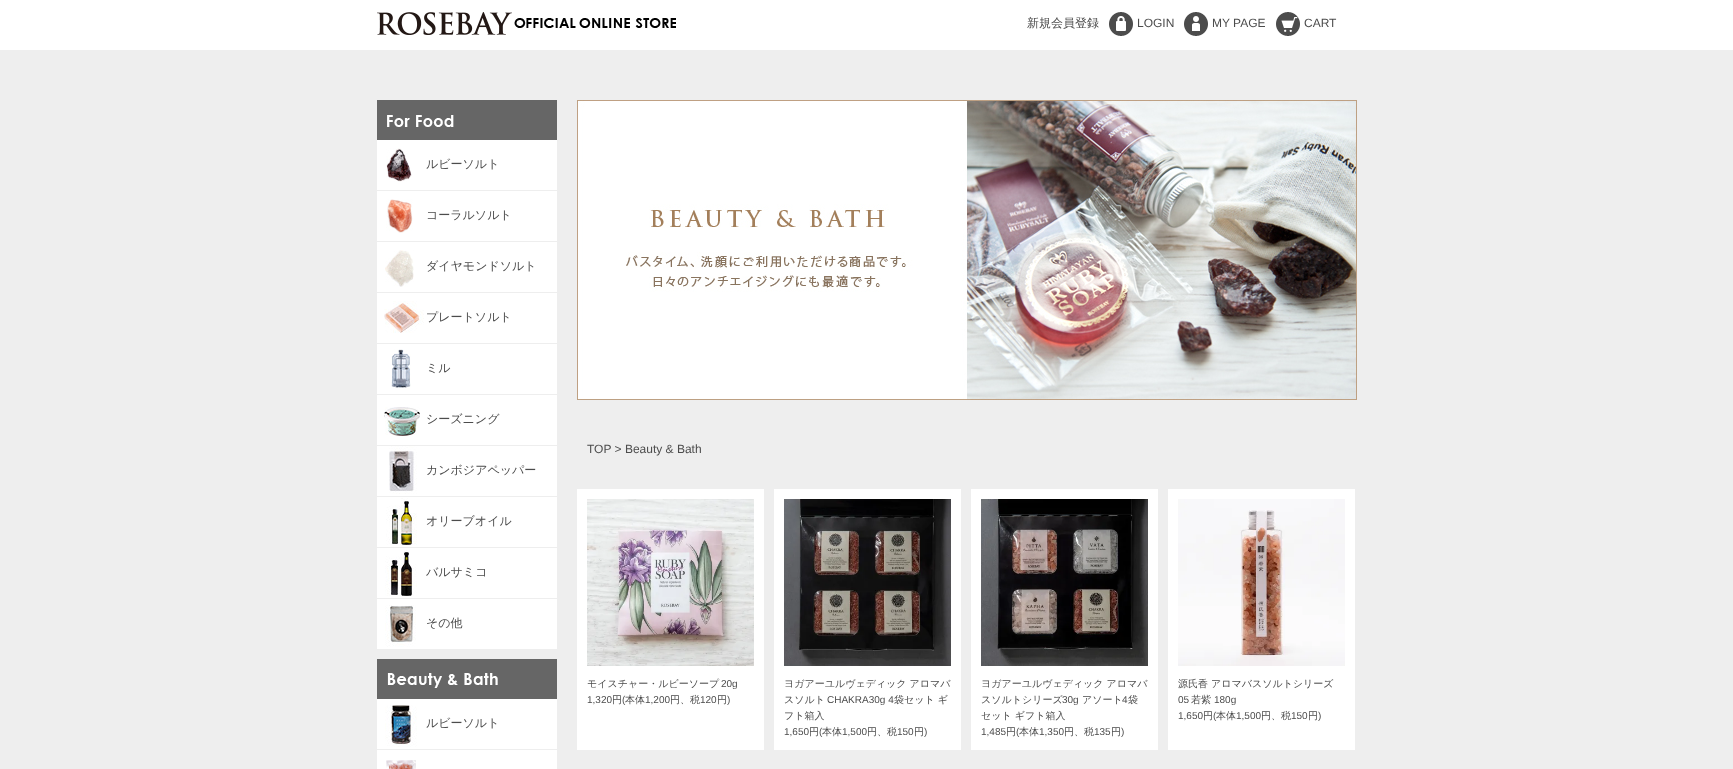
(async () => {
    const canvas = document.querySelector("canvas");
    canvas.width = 1733;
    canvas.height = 769;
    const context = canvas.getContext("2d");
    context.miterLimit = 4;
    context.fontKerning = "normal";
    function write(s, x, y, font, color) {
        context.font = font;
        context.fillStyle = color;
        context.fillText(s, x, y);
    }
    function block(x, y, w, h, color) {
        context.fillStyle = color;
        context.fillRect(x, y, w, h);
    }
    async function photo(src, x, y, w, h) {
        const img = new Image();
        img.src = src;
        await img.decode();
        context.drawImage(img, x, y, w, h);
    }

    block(0, 0, 1733, 769, "rgb(238, 238, 238)");
    block(0, 0, 1733, 50, "rgb(255, 255, 255)");
    await photo("media/1.png", 377, 12, 299, 23);
    write("新規会員登録", 1027, 27, "500 12px WenQuanYi Zen Hei", "rgb(76, 76, 76)");
    await photo("media/2.png", 1109, 12, 24, 24);
    write("LOGIN", 1137, 27, "12px Liberation Sans", "rgb(76, 76, 76)");
    await photo("media/3.png", 1184, 12, 24, 24);
    write("MY PAGE", 1212, 27, "12px Liberation Sans", "rgb(76, 76, 76)");
    await photo("media/4.png", 1276, 12, 24, 24);
    write("CART", 1304, 27, "12px Liberation Sans", "rgb(76, 76, 76)");
    await photo("media/5.png", 377, 100, 180, 40);
    block(377, 140, 180, 50, "rgb(255, 255, 255)");
    await photo("media/6.png", 386, 148, 26, 34);
    write("ルビーソルト", 426, 168, "500 12px WenQuanYi Zen Hei", "rgb(76, 76, 76)");
    block(377, 191, 180, 50, "rgb(255, 255, 255)");
    await photo("media/7.png", 386, 199, 27, 34);
    write("コーラルソルト", 426, 219, "500 12px WenQuanYi Zen Hei", "rgb(76, 76, 76)");
    block(377, 242, 180, 50, "rgb(255, 255, 255)");
    await photo("media/8.png", 385, 250, 29, 37);
    write("ダイヤモンドソルト", 426, 270, "500 12px WenQuanYi Zen Hei", "rgb(76, 76, 76)");
    block(377, 293, 180, 50, "rgb(255, 255, 255)");
    await photo("media/9.png", 384, 301, 40, 32);
    write("プレートソルト", 426, 321, "500 12px WenQuanYi Zen Hei", "rgb(76, 76, 76)");
    block(377, 344, 180, 50, "rgb(255, 255, 255)");
    await photo("media/10.png", 391, 349, 20, 39);
    write("ミル", 426, 372, "500 12px WenQuanYi Zen Hei", "rgb(76, 76, 76)");
    block(377, 395, 180, 50, "rgb(255, 255, 255)");
    await photo("media/11.png", 384, 407, 36, 29);
    write("シーズニング", 426, 423, "500 12px WenQuanYi Zen Hei", "rgb(76, 76, 76)");
    block(377, 446, 180, 50, "rgb(255, 255, 255)");
    await photo("media/12.png", 389, 446, 28, 48);
    write("カンボジアペッパー", 426, 474, "500 12px WenQuanYi Zen Hei", "rgb(76, 76, 76)");
    block(377, 497, 180, 50, "rgb(255, 255, 255)");
    await photo("media/13.png", 386, 498, 31, 47);
    write("オリーブオイル", 426, 525, "500 12px WenQuanYi Zen Hei", "rgb(76, 76, 76)");
    block(377, 548, 180, 50, "rgb(255, 255, 255)");
    await photo("media/14.png", 385, 550, 32, 46);
    write("バルサミコ", 426, 576, "500 12px WenQuanYi Zen Hei", "rgb(76, 76, 76)");
    block(377, 599, 180, 50, "rgb(255, 255, 255)");
    await photo("media/15.png", 385, 605, 31, 42);
    write("その他", 426, 627, "500 12px WenQuanYi Zen Hei", "rgb(76, 76, 76)");
    await photo("media/16.png", 377, 659, 180, 40);
    block(377, 699, 180, 50, "rgb(255, 255, 255)");
    await photo("media/17.png", 385, 705, 32, 42);
    write("ルビーソルト", 426, 727, "500 12px WenQuanYi Zen Hei", "rgb(76, 76, 76)");
    block(377, 750, 180, 19, "rgb(255, 255, 255)");
    await photo("media/18.png", 386, 760, 30, 9);
    await photo("media/19.png", 577, 100, 780, 300);
    write("TOP > Beauty & Bath", 587, 453, "12px Liberation Sans", "rgb(76, 76, 76)");
    block(577, 489, 187, 261, "rgb(255, 255, 255)");
    await photo("media/20.png", 587, 499, 167, 167);
    write("モイスチャー・ルビーソープ", 587, 687, "500 10px WenQuanYi Zen Hei", "rgb(76, 76, 76)");
    write("20g", 721, 687, "10px Liberation Sans", "rgb(76, 76, 76)");
    write("1,320", 587, 703, "10px Liberation Sans", "rgb(76, 76, 76)");
    write("円", 612, 703, "500 10px WenQuanYi Zen Hei", "rgb(76, 76, 76)");
    write("(", 622, 703, "10px Liberation Sans", "rgb(76, 76, 76)");
    write("本体", 625, 703, "500 10px WenQuanYi Zen Hei", "rgb(76, 76, 76)");
    write("1,200", 645, 703, "10px Liberation Sans", "rgb(76, 76, 76)");
    write("円、税", 670, 703, "500 10px WenQuanYi Zen Hei", "rgb(76, 76, 76)");
    write("120", 700, 703, "10px Liberation Sans", "rgb(76, 76, 76)");
    write("円", 717, 703, "500 10px WenQuanYi Zen Hei", "rgb(76, 76, 76)");
    write(")", 727, 703, "10px Liberation Sans", "rgb(76, 76, 76)");
    block(774, 489, 187, 261, "rgb(255, 255, 255)");
    await photo("media/21.png", 784, 499, 167, 167);
    write("ヨガアーユルヴェディック アロマバ", 784, 687, "500 10px WenQuanYi Zen Hei", "rgb(76, 76, 76)");
    write("スソルト", 784, 703, "500 10px WenQuanYi Zen Hei", "rgb(76, 76, 76)");
    write("CHAKRA30g 4", 827, 703, "10px Liberation Sans", "rgb(76, 76, 76)");
    write("袋セット ギ", 894, 703, "500 10px WenQuanYi Zen Hei", "rgb(76, 76, 76)");
    write("フト箱入", 784, 719, "500 10px WenQuanYi Zen Hei", "rgb(76, 76, 76)");
    write("1,650", 784, 735, "10px Liberation Sans", "rgb(76, 76, 76)");
    write("円", 809, 735, "500 10px WenQuanYi Zen Hei", "rgb(76, 76, 76)");
    write("(", 819, 735, "10px Liberation Sans", "rgb(76, 76, 76)");
    write("本体", 822, 735, "500 10px WenQuanYi Zen Hei", "rgb(76, 76, 76)");
    write("1,500", 842, 735, "10px Liberation Sans", "rgb(76, 76, 76)");
    write("円、税", 867, 735, "500 10px WenQuanYi Zen Hei", "rgb(76, 76, 76)");
    write("150", 897, 735, "10px Liberation Sans", "rgb(76, 76, 76)");
    write("円", 914, 735, "500 10px WenQuanYi Zen Hei", "rgb(76, 76, 76)");
    write(")", 924, 735, "10px Liberation Sans", "rgb(76, 76, 76)");
    block(971, 489, 187, 261, "rgb(255, 255, 255)");
    await photo("media/22.png", 981, 499, 167, 167);
    write("ヨガアーユルヴェディック アロマバ", 981, 687, "500 10px WenQuanYi Zen Hei", "rgb(76, 76, 76)");
    write("スソルトシリーズ", 981, 703, "500 10px WenQuanYi Zen Hei", "rgb(76, 76, 76)");
    write("30g", 1062, 703, "10px Liberation Sans", "rgb(76, 76, 76)");
    write("アソート", 1082, 703, "500 10px WenQuanYi Zen Hei", "rgb(76, 76, 76)");
    write("4", 1122, 703, "10px Liberation Sans", "rgb(76, 76, 76)");
    write("袋", 1128, 703, "500 10px WenQuanYi Zen Hei", "rgb(76, 76, 76)");
    write("セット ギフト箱入", 981, 719, "500 10px WenQuanYi Zen Hei", "rgb(76, 76, 76)");
    write("1,485", 981, 735, "10px Liberation Sans", "rgb(76, 76, 76)");
    write("円", 1006, 735, "500 10px WenQuanYi Zen Hei", "rgb(76, 76, 76)");
    write("(", 1016, 735, "10px Liberation Sans", "rgb(76, 76, 76)");
    write("本体", 1019, 735, "500 10px WenQuanYi Zen Hei", "rgb(76, 76, 76)");
    write("1,350", 1039, 735, "10px Liberation Sans", "rgb(76, 76, 76)");
    write("円、税", 1064, 735, "500 10px WenQuanYi Zen Hei", "rgb(76, 76, 76)");
    write("135", 1094, 735, "10px Liberation Sans", "rgb(76, 76, 76)");
    write("円", 1111, 735, "500 10px WenQuanYi Zen Hei", "rgb(76, 76, 76)");
    write(")", 1121, 735, "10px Liberation Sans", "rgb(76, 76, 76)");
    block(1168, 489, 187, 261, "rgb(255, 255, 255)");
    await photo("media/23.png", 1178, 499, 167, 167);
    write("源氏香 アロマバスソルトシリーズ", 1178, 687, "500 10px WenQuanYi Zen Hei", "rgb(76, 76, 76)");
    write("05", 1178, 703, "10px Liberation Sans", "rgb(76, 76, 76)");
    write("若紫", 1191, 703, "500 10px WenQuanYi Zen Hei", "rgb(76, 76, 76)");
    write("180g", 1214, 703, "10px Liberation Sans", "rgb(76, 76, 76)");
    write("1,650", 1178, 719, "10px Liberation Sans", "rgb(76, 76, 76)");
    write("円", 1203, 719, "500 10px WenQuanYi Zen Hei", "rgb(76, 76, 76)");
    write("(", 1213, 719, "10px Liberation Sans", "rgb(76, 76, 76)");
    write("本体", 1216, 719, "500 10px WenQuanYi Zen Hei", "rgb(76, 76, 76)");
    write("1,500", 1236, 719, "10px Liberation Sans", "rgb(76, 76, 76)");
    write("円、税", 1261, 719, "500 10px WenQuanYi Zen Hei", "rgb(76, 76, 76)");
    write("150", 1291, 719, "10px Liberation Sans", "rgb(76, 76, 76)");
    write("円", 1308, 719, "500 10px WenQuanYi Zen Hei", "rgb(76, 76, 76)");
    write(")", 1318, 719, "10px Liberation Sans", "rgb(76, 76, 76)");
})();
